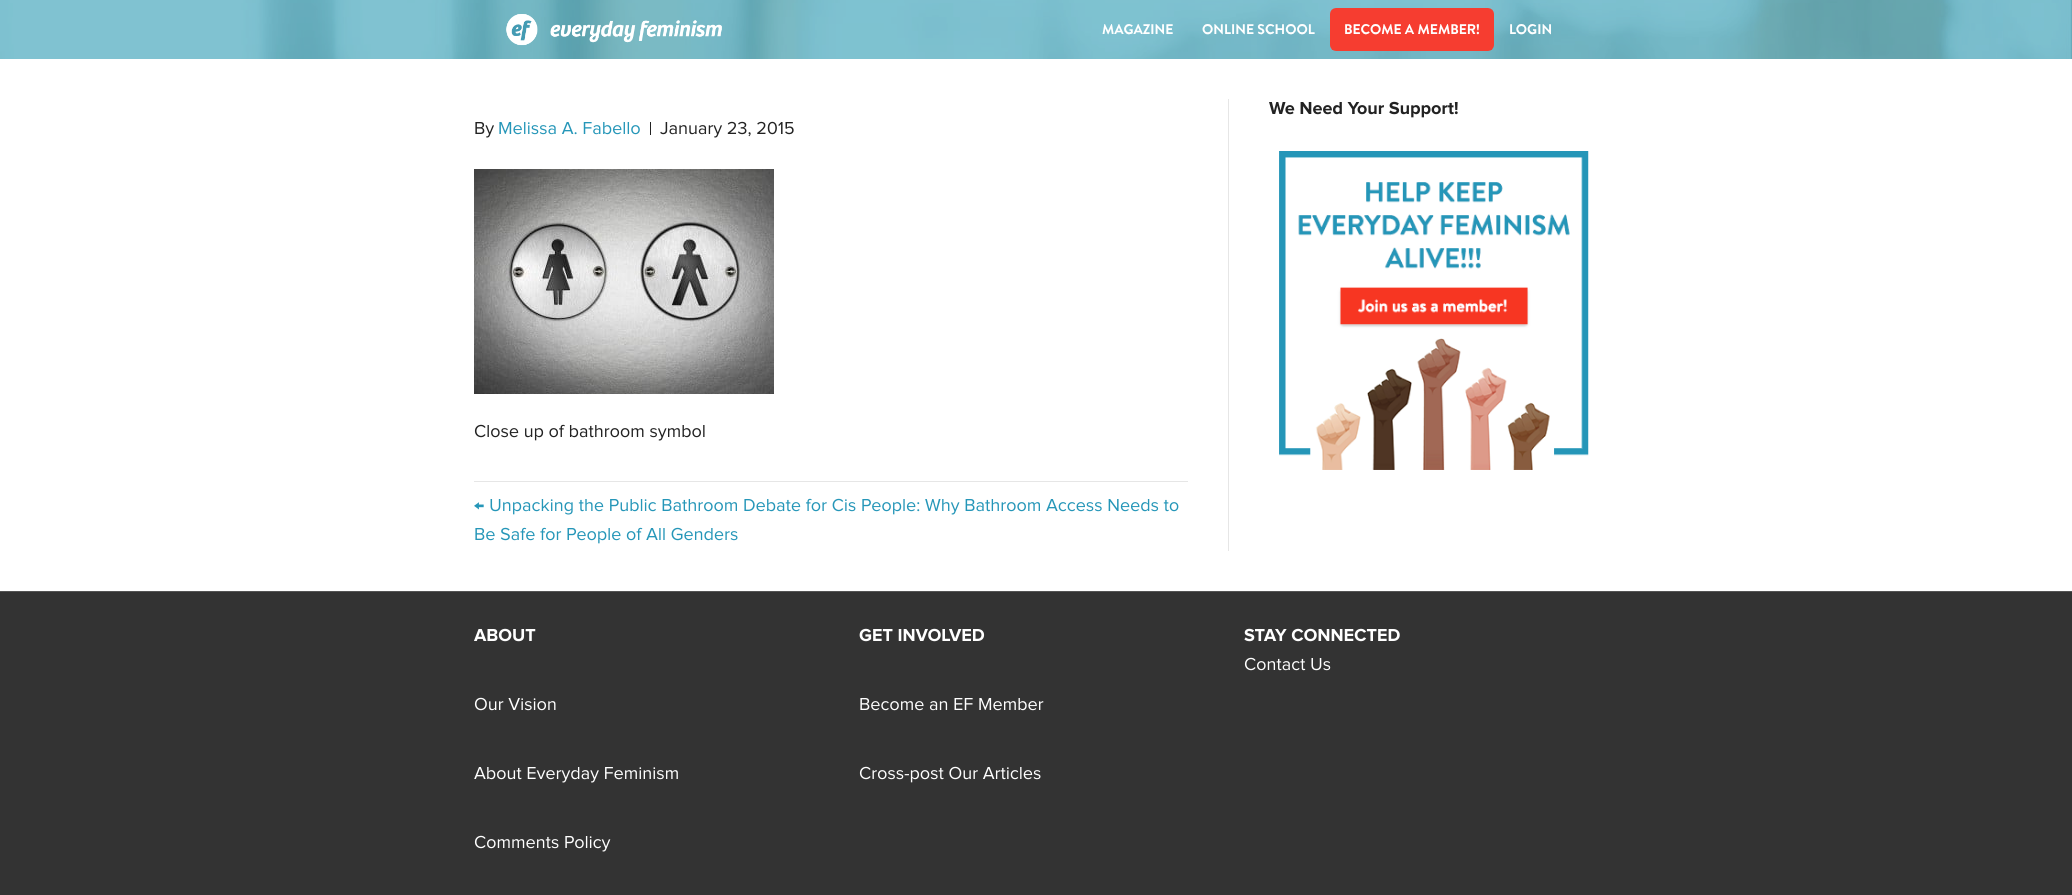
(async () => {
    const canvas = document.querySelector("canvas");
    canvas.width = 2072;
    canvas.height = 895;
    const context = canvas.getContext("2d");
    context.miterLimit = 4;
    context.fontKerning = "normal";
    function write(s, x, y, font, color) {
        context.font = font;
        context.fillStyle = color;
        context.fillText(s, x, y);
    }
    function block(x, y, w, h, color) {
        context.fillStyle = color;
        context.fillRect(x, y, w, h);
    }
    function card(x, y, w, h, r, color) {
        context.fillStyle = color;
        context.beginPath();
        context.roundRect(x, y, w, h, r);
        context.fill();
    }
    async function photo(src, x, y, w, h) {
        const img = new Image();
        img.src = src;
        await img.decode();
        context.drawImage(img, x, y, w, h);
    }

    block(0, 0, 2072, 895, "rgb(255, 255, 255)");
    await photo("media/1.png", 0, 0, 2072, 59);
    await photo("media/2.png", 506, 14, 216, 32);
    write("MAGAZINE", 1102, 34, "bold 14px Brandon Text", "rgb(255, 255, 255)");
    write("ONLINE SCHOOL", 1202, 34, "bold 14px Brandon Text", "rgb(255, 255, 255)");
    card(1330, 8, 164, 43, 6, "rgb(246, 61, 48)");
    write("BECOME A MEMBER!", 1344, 34, "bold 14px Brandon Text", "rgb(255, 255, 255)");
    write("LOGIN", 1509, 34, "bold 14px Brandon Text", "rgb(255, 255, 255)");
    block(1228, 99, 1, 452, "rgb(230, 230, 230)");
    await photo("media/3.png", 475, 122, 19, 16);
    await photo("media/4.png", 499, 122, 141, 13);
    block(650, 122, 1, 13, "rgb(34, 34, 34)");
    await photo("media/5.png", 660, 121, 134, 17);
    await photo("media/6.png", 474, 169, 300, 225);
    await photo("media/7.png", 474, 424, 231, 17);
    block(474, 481, 714, 1, "rgb(230, 230, 230)");
    await photo("media/8.png", 474, 498, 705, 17);
    await photo("media/9.png", 475, 527, 263, 17);
    await photo("media/10.png", 1269, 101, 189, 17);
    await photo("media/11.png", 1279, 151, 310, 319);
    block(0, 592, 2072, 303, "rgb(51, 51, 51)");
    block(0, 591, 2072, 1, "rgb(84, 84, 84)");
    await photo("media/12.png", 474, 628, 62, 14);
    await photo("media/13.png", 474, 697, 82, 14);
    await photo("media/14.png", 474, 767, 204, 16);
    await photo("media/15.png", 474, 835, 137, 17);
    await photo("media/16.png", 859, 628, 126, 14);
    await photo("media/17.png", 860, 698, 184, 13);
    await photo("media/18.png", 859, 766, 182, 17);
    await photo("media/19.png", 1244, 628, 156, 14);
    await photo("media/20.png", 1244, 657, 87, 14);
})();
